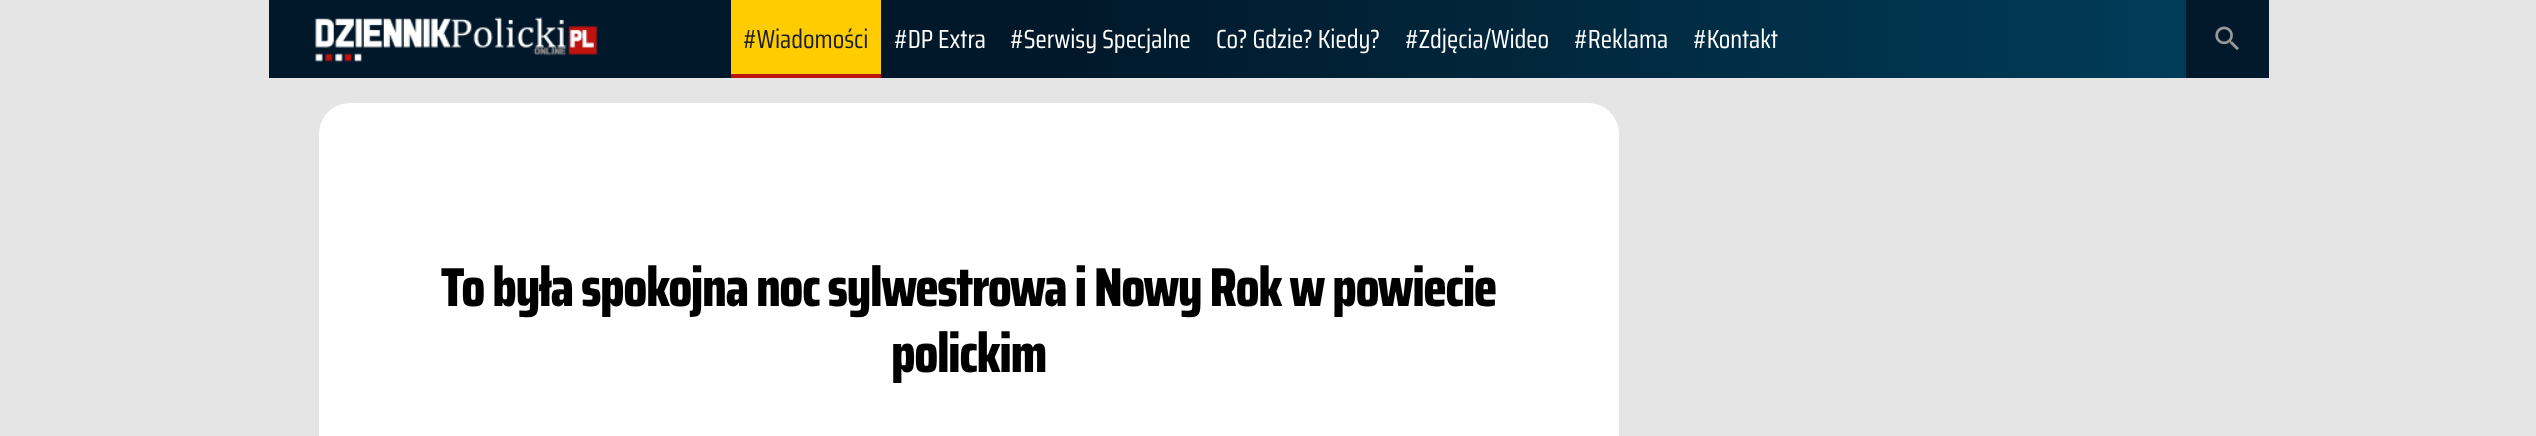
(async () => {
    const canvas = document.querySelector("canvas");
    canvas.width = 2536;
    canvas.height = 436;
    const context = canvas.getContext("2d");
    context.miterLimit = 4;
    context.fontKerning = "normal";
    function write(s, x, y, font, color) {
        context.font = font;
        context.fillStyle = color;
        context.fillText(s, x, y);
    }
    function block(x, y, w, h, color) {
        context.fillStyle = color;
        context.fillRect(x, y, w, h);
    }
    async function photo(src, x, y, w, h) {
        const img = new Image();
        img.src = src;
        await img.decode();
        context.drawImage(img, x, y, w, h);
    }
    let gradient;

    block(0, 0, 2536, 436, "rgb(229, 229, 229)");
    gradient = context.createLinearGradient(269, 39, 2269, 39);
    gradient.addColorStop(0, "rgb(1, 24, 42)");
    gradient.addColorStop(0.4, "rgb(1, 24, 42)");
    gradient.addColorStop(1, "rgb(1, 63, 92)");
    context.fillStyle = gradient;
    context.fillRect(269, 0, 1917, 78);
    gradient = context.createLinearGradient(269, 39, 2269, 39);
    gradient.addColorStop(0, "rgb(1, 24, 42)");
    gradient.addColorStop(0.4, "rgb(1, 24, 42)");
    gradient.addColorStop(1, "rgb(1, 25, 43)");
    context.fillStyle = gradient;
    context.fillRect(2186, 0, 83, 78);
    await photo("media/1.png", 314, 17, 284, 45);
    block(731, 0, 150, 74, "rgb(255, 204, 0)");
    block(731, 74, 150, 4, "rgb(192, 19, 14)");
    write("#Wiadomości", 743, 48, "26.25px Saira Condensed", "rgb(24, 29, 36)");
    write("#DP Extra", 894, 48, "26.25px Saira Condensed", "rgb(255, 255, 255)");
    write("#Serwisy Specjalne", 1010, 48, "26.25px Saira Condensed", "rgb(255, 255, 255)");
    write("Co? Gdzie? Kiedy?", 1216, 48, "26.25px Saira Condensed", "rgb(255, 255, 255)");
    write("#Zdjęcia/Wideo", 1405, 48, "26.25px Saira Condensed", "rgb(255, 255, 255)");
    write("#Reklama", 1574, 48, "26.25px Saira Condensed", "rgb(255, 255, 255)");
    write("#Kontakt", 1693, 48, "26.25px Saira Condensed", "rgb(255, 255, 255)");
    await photo("media/2.png", 2215, 26, 24, 25);
    context.beginPath();
    context.moveTo(350, 103);
    context.lineTo(1588, 103);
    context.bezierCurveTo(1605, 103, 1619, 117, 1619, 134);
    context.lineTo(1619, 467);
    context.lineTo(319, 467);
    context.lineTo(319, 134);
    context.bezierCurveTo(319, 117, 333, 103, 350, 103);
    context.closePath();
    context.fill();
    context.letterSpacing = "-1.5px";
    write("To była spokojna noc sylwestrowa i Nowy Rok w powiecie", 441, 306, "800 55px Saira Condensed", "rgb(0, 0, 0)");
    write("polickim", 891, 372, "800 55px Saira Condensed", "rgb(0, 0, 0)");
})();
